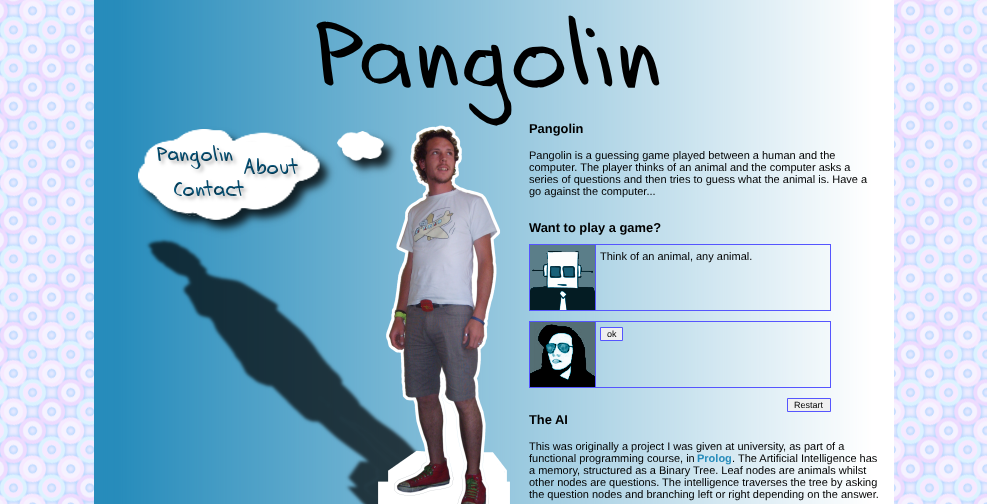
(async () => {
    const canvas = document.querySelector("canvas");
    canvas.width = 987;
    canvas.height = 504;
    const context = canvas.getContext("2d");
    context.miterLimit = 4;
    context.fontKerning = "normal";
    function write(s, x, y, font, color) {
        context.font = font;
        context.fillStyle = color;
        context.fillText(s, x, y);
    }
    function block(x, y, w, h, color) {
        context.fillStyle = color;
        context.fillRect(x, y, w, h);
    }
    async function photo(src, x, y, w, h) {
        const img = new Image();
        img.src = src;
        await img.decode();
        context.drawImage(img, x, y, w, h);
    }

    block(0, 0, 987, 504, "rgb(255, 255, 255)");
    await photo("media/1.png", 0, 0, 987, 504);
    await photo("media/2.png", 94, 0, 800, 504);
    await photo("media/3.png", 138, 125, 372, 379);
    write("Pangolin", 315, 87, "100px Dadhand", "rgb(0, 0, 0)");
    write("Pangolin", 529, 133, "bold 12.9px Liberation Sans", "rgb(0, 0, 0)");
    write("Pangolin is a guessing game played between a human and the", 529, 159, "11px Liberation Sans", "rgb(0, 0, 0)");
    write("computer. The player thinks of an animal and the computer asks a", 529, 171, "11px Liberation Sans", "rgb(0, 0, 0)");
    write("series of questions and then tries to guess what the animal is. Have a", 529, 183, "11px Liberation Sans", "rgb(0, 0, 0)");
    write("go against the computer...", 529, 195, "11px Liberation Sans", "rgb(0, 0, 0)");
    write("Want to play a game?", 529, 232, "bold 12.9px Liberation Sans", "rgb(0, 0, 0)");
    context.strokeStyle = "rgb(85, 85, 255)";
    context.strokeRect(529.5, 244.5, 301, 66);
    block(595, 245, 1, 65, "rgb(85, 85, 255)");
    await photo("media/4.png", 530, 245, 65, 65);
    write("Think of an animal, any animal.", 600, 260, "11px Liberation Sans", "rgb(0, 0, 0)");
    context.strokeRect(529.5, 321.5, 301, 66);
    block(595, 322, 1, 65, "rgb(85, 85, 255)");
    await photo("media/5.png", 530, 322, 65, 65);
    context.fillStyle = "rgb(239, 239, 239)";
    context.beginPath();
    context.rect(600.5, 327.5, 22, 13);
    context.fill();
    context.stroke();
    write("ok", 607, 337, "9px Liberation Sans", "rgb(0, 0, 0)");
    context.fillStyle = "rgb(239, 239, 239)";
    context.beginPath();
    context.rect(787.5, 398.5, 43, 13);
    context.fill();
    context.stroke();
    write("Restart", 794, 408, "9px Liberation Sans", "rgb(0, 0, 0)");
    write("The AI", 529, 424, "bold 12.9px Liberation Sans", "rgb(0, 0, 0)");
    write("This was originally a project I was given at university, as part of a", 529, 450, "11px Liberation Sans", "rgb(0, 0, 0)");
    write("functional programming course, in", 529, 462, "11px Liberation Sans", "rgb(0, 0, 0)");
    write("Prolog", 697, 462, "bold 11px Liberation Sans", "rgb(39, 140, 187)");
    write(". The Artificial Intelligence has", 732, 462, "11px Liberation Sans", "rgb(0, 0, 0)");
    write("a memory, structured as a Binary Tree. Leaf nodes are animals whilst", 529, 474, "11px Liberation Sans", "rgb(0, 0, 0)");
    write("other nodes are questions. The intelligence traverses the tree by asking", 529, 486, "11px Liberation Sans", "rgb(0, 0, 0)");
    write("the question nodes and branching left or right depending on the answer.", 529, 498, "11px Liberation Sans", "rgb(0, 0, 0)");
})();
